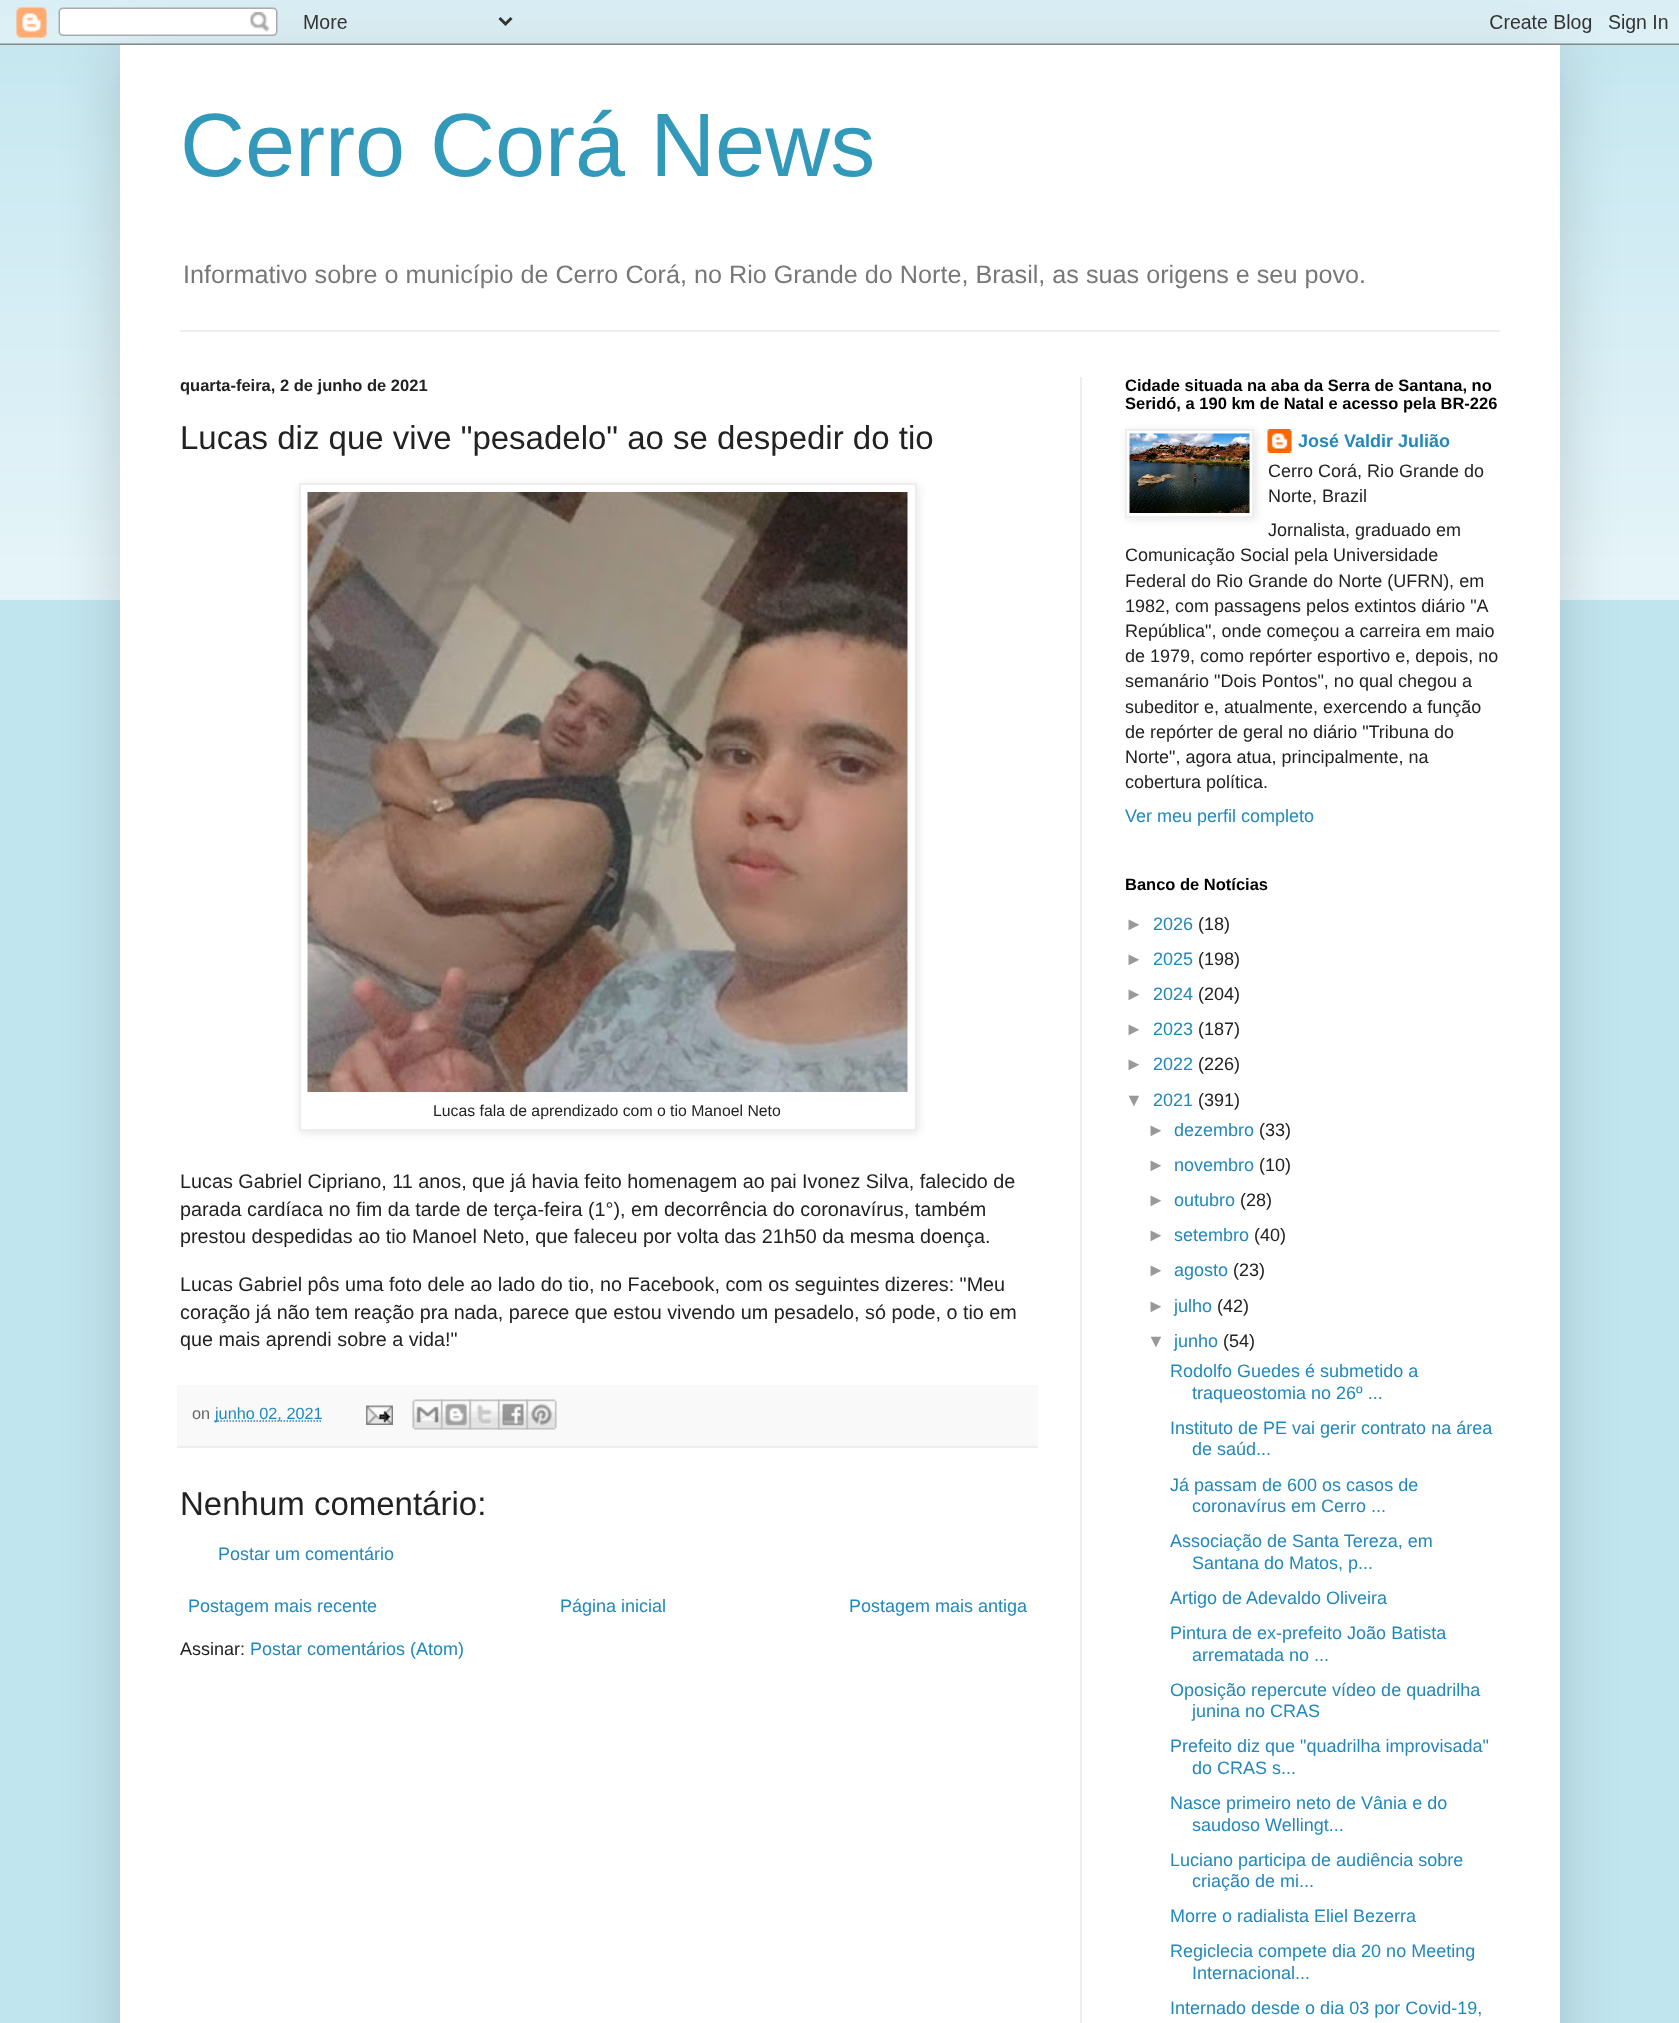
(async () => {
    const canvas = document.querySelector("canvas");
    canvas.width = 1679;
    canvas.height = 2023;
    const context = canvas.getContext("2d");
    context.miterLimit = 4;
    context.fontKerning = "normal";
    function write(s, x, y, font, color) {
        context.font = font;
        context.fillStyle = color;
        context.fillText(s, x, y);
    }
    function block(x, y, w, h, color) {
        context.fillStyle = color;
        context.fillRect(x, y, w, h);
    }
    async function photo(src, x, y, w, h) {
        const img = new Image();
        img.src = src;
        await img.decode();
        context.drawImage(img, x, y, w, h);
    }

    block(0, 0, 1679, 2023, "rgb(193, 229, 239)");
    await photo("media/2.png", 0, 15, 1679, 585);
    context.fillStyle = "rgba(0, 0, 0, 0.15)";
    context.filter = "blur(30px)";
    context.beginPath();
    context.rect(120, 45, 1440, 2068);
    context.fill();
    context.filter = "none";
    await photo("media/1.png", 0, 0, 1679, 45);
    block(120, 45, 1440, 1978, "rgb(255, 255, 255)");
    write("Cerro Corá News", 180, 176, "90px Liberation Sans", "rgb(51, 153, 187)");
    write("Informativo sobre o município de Cerro Corá, no Rio Grande do Norte, Brasil, as suas origens e seu povo.", 183, 283, "25.2px Liberation Sans", "rgb(119, 119, 119)");
    block(180, 330, 1320, 2, "rgb(238, 238, 238)");
    block(1080, 377, 2, 1646, "rgb(238, 238, 238)");
    write("quarta-feira, 2 de junho de 2021", 180, 391, "bold 16.5px Liberation Sans", "rgb(34, 34, 34)");
    write("Lucas diz que vive \"pesadelo\" ao se despedir do tio", 180, 449, "33px Liberation Sans", "rgb(34, 34, 34)");
    context.fillStyle = "rgba(0, 0, 0, 0.1)";
    context.filter = "blur(4px)";
    context.beginPath();
    context.rect(300, 485, 618, 648);
    context.fill();
    context.filter = "none";
    context.fillStyle = "rgb(255, 255, 255)";
    context.beginPath();
    context.rect(300, 484, 616, 646);
    context.fill();
    context.strokeStyle = "rgb(238, 238, 238)";
    context.lineWidth = 2;
    context.stroke();
    await photo("media/3.png", 307, 492, 601, 600);
    write("Lucas fala de aprendizado com o tio Manoel Neto", 433, 1116, "15.8px Liberation Sans", "rgb(34, 34, 34)");
    write("Lucas Gabriel Cipriano, 11 anos, que já havia feito homenagem ao pai Ivonez Silva, falecido de", 180, 1188, "19.8px Liberation Sans", "rgb(34, 34, 34)");
    write("parada cardíaca no fim da tarde de terça-feira (1°), em decorrência do coronavírus, também", 180, 1216, "19.8px Liberation Sans", "rgb(34, 34, 34)");
    write("prestou despedidas ao tio Manoel Neto, que faleceu por volta das 21h50 da mesma doença.", 180, 1243, "19.8px Liberation Sans", "rgb(34, 34, 34)");
    write("Lucas Gabriel pôs uma foto dele ao lado do tio, no Facebook, com os seguintes dizeres: \"Meu", 180, 1291, "19.8px Liberation Sans", "rgb(34, 34, 34)");
    write("coração já não tem reação pra nada, parece que estou vivendo um pesadelo, só pode, o tio em", 180, 1319, "19.8px Liberation Sans", "rgb(34, 34, 34)");
    write("que mais aprendi sobre a vida!\"", 180, 1346, "19.8px Liberation Sans", "rgb(34, 34, 34)");
    block(177, 1385, 861, 61, "rgb(249, 249, 249)");
    block(177, 1446, 861, 2, "rgb(238, 238, 238)");
    write("on", 192, 1419, "16.25px Liberation Sans", "rgb(102, 102, 102)");
    context.beginPath();
    context.moveTo(214.5, 1421);
    context.lineTo(321.5, 1421);
    context.strokeStyle = "rgb(34, 136, 187)";
    context.lineWidth = 1.5;
    context.setLineDash([1.5, 1.5]);
    context.stroke();
    write("junho 02, 2021", 215, 1419, "16.25px Liberation Sans", "rgb(34, 136, 187)");
    await photo("media/4.png", 366, 1405, 27, 20);
    await photo("media/5.png", 412, 1399, 31, 31);
    await photo("media/6.png", 441, 1399, 30, 31);
    await photo("media/7.png", 469, 1399, 31, 31);
    await photo("media/8.png", 498, 1399, 30, 31);
    await photo("media/9.png", 526, 1399, 31, 31);
    write("Nenhum comentário:", 180, 1515, "33px Liberation Sans", "rgb(34, 34, 34)");
    write("Postar um comentário", 218, 1560, "18px Liberation Sans", "rgb(34, 136, 187)");
    write("Postagem mais recente", 188, 1612, "18px Liberation Sans", "rgb(34, 136, 187)");
    write("Página inicial", 560, 1612, "18px Liberation Sans", "rgb(34, 136, 187)");
    write("Postagem mais antiga", 849, 1612, "18px Liberation Sans", "rgb(34, 136, 187)");
    write("Assinar:", 180, 1655, "18px Liberation Sans", "rgb(34, 34, 34)");
    write("Postar comentários (Atom)", 250, 1655, "18px Liberation Sans", "rgb(34, 136, 187)");
    write("Cidade situada na aba da Serra de Santana, no", 1125, 391, "bold 16.5px Liberation Sans", "rgb(0, 0, 0)");
    write("Seridó, a 190 km de Natal e acesso pela BR-226", 1125, 409, "bold 16.5px Liberation Sans", "rgb(0, 0, 0)");
    await photo("media/11.png", 1267, 429, 25, 24);
    context.fillStyle = "rgba(0, 0, 0, 0.1)";
    context.filter = "blur(4px)";
    context.beginPath();
    context.rect(1127, 431, 129, 88);
    context.fill();
    context.filter = "none";
    context.fillStyle = "rgb(255, 255, 255)";
    context.beginPath();
    context.rect(1126, 430, 127, 87);
    context.fill();
    context.strokeStyle = "rgb(238, 238, 238)";
    context.lineWidth = 2;
    context.setLineDash([]);
    context.stroke();
    await photo("media/10.png", 1129, 433, 121, 80);
    write("José Valdir Julião", 1298, 447, "bold 18px Liberation Sans", "rgb(34, 136, 187)");
    write("Cerro Corá, Rio Grande do", 1268, 477, "18px Liberation Sans", "rgb(34, 34, 34)");
    write("Norte, Brazil", 1268, 502, "18px Liberation Sans", "rgb(34, 34, 34)");
    write("Jornalista, graduado em", 1268, 536, "18px Liberation Sans", "rgb(34, 34, 34)");
    write("Comunicação Social pela Universidade", 1125, 561, "18px Liberation Sans", "rgb(34, 34, 34)");
    write("Federal do Rio Grande do Norte (UFRN), em", 1125, 587, "18px Liberation Sans", "rgb(34, 34, 34)");
    write("1982, com passagens pelos extintos diário \"A", 1125, 612, "18px Liberation Sans", "rgb(34, 34, 34)");
    write("República\", onde começou a carreira em maio", 1125, 637, "18px Liberation Sans", "rgb(34, 34, 34)");
    write("de 1979, como repórter esportivo e, depois, no", 1125, 662, "18px Liberation Sans", "rgb(34, 34, 34)");
    write("semanário \"Dois Pontos\", no qual chegou a", 1125, 687, "18px Liberation Sans", "rgb(34, 34, 34)");
    write("subeditor e, atualmente, exercendo a função", 1125, 713, "18px Liberation Sans", "rgb(34, 34, 34)");
    write("de repórter de geral no diário \"Tribuna do", 1125, 738, "18px Liberation Sans", "rgb(34, 34, 34)");
    write("Norte\", agora atua, principalmente, na", 1125, 763, "18px Liberation Sans", "rgb(34, 34, 34)");
    write("cobertura política.", 1125, 788, "18px Liberation Sans", "rgb(34, 34, 34)");
    write("Ver meu perfil completo", 1125, 822, "18px Liberation Sans", "rgb(34, 136, 187)");
    write("Banco de Notícias", 1125, 890, "bold 16.5px Liberation Sans", "rgb(0, 0, 0)");
    write("►", 1125, 930, "18px Liberation Sans", "rgb(153, 153, 153)");
    write("2026", 1153, 930, "18px Liberation Sans", "rgb(34, 136, 187)");
    write("(18)", 1198, 930, "18px Liberation Sans", "rgb(34, 34, 34)");
    write("►", 1125, 965, "18px Liberation Sans", "rgb(153, 153, 153)");
    write("2025", 1153, 965, "18px Liberation Sans", "rgb(34, 136, 187)");
    write("(198)", 1198, 965, "18px Liberation Sans", "rgb(34, 34, 34)");
    write("►", 1125, 1000, "18px Liberation Sans", "rgb(153, 153, 153)");
    write("2024", 1153, 1000, "18px Liberation Sans", "rgb(34, 136, 187)");
    write("(204)", 1198, 1000, "18px Liberation Sans", "rgb(34, 34, 34)");
    write("►", 1125, 1035, "18px Liberation Sans", "rgb(153, 153, 153)");
    write("2023", 1153, 1035, "18px Liberation Sans", "rgb(34, 136, 187)");
    write("(187)", 1198, 1035, "18px Liberation Sans", "rgb(34, 34, 34)");
    write("►", 1125, 1070, "18px Liberation Sans", "rgb(153, 153, 153)");
    write("2022", 1153, 1070, "18px Liberation Sans", "rgb(34, 136, 187)");
    write("(226)", 1198, 1070, "18px Liberation Sans", "rgb(34, 34, 34)");
    write("▼", 1125, 1106, "18px Liberation Sans", "rgb(153, 153, 153)");
    write("2021", 1153, 1106, "18px Liberation Sans", "rgb(34, 136, 187)");
    write("(391)", 1198, 1106, "18px Liberation Sans", "rgb(34, 34, 34)");
    write("►", 1147, 1136, "18px Liberation Sans", "rgb(153, 153, 153)");
    write("dezembro", 1174, 1136, "18px Liberation Sans", "rgb(34, 136, 187)");
    write("(33)", 1259, 1136, "18px Liberation Sans", "rgb(34, 34, 34)");
    write("►", 1147, 1171, "18px Liberation Sans", "rgb(153, 153, 153)");
    write("novembro", 1174, 1171, "18px Liberation Sans", "rgb(34, 136, 187)");
    write("(10)", 1259, 1171, "18px Liberation Sans", "rgb(34, 34, 34)");
    write("►", 1147, 1206, "18px Liberation Sans", "rgb(153, 153, 153)");
    write("outubro", 1174, 1206, "18px Liberation Sans", "rgb(34, 136, 187)");
    write("(28)", 1240, 1206, "18px Liberation Sans", "rgb(34, 34, 34)");
    write("►", 1147, 1241, "18px Liberation Sans", "rgb(153, 153, 153)");
    write("setembro", 1174, 1241, "18px Liberation Sans", "rgb(34, 136, 187)");
    write("(40)", 1254, 1241, "18px Liberation Sans", "rgb(34, 34, 34)");
    write("►", 1147, 1276, "18px Liberation Sans", "rgb(153, 153, 153)");
    write("agosto", 1174, 1276, "18px Liberation Sans", "rgb(34, 136, 187)");
    write("(23)", 1233, 1276, "18px Liberation Sans", "rgb(34, 34, 34)");
    write("►", 1147, 1312, "18px Liberation Sans", "rgb(153, 153, 153)");
    write("julho", 1174, 1312, "18px Liberation Sans", "rgb(34, 136, 187)");
    write("(42)", 1217, 1312, "18px Liberation Sans", "rgb(34, 34, 34)");
    write("▼", 1147, 1347, "18px Liberation Sans", "rgb(153, 153, 153)");
    write("junho", 1174, 1347, "18px Liberation Sans", "rgb(34, 136, 187)");
    write("(54)", 1223, 1347, "18px Liberation Sans", "rgb(34, 34, 34)");
    write("Rodolfo Guedes é submetido a", 1170, 1377, "18px Liberation Sans", "rgb(34, 136, 187)");
    write("traqueostomia no 26º ...", 1192, 1399, "18px Liberation Sans", "rgb(34, 136, 187)");
    write("Instituto de PE vai gerir contrato na área", 1170, 1434, "18px Liberation Sans", "rgb(34, 136, 187)");
    write("de saúd...", 1192, 1455, "18px Liberation Sans", "rgb(34, 136, 187)");
    write("Já passam de 600 os casos de", 1170, 1491, "18px Liberation Sans", "rgb(34, 136, 187)");
    write("coronavírus em Cerro ...", 1192, 1512, "18px Liberation Sans", "rgb(34, 136, 187)");
    write("Associação de Santa Tereza, em", 1170, 1547, "18px Liberation Sans", "rgb(34, 136, 187)");
    write("Santana do Matos, p...", 1192, 1569, "18px Liberation Sans", "rgb(34, 136, 187)");
    write("Artigo de Adevaldo Oliveira", 1170, 1604, "18px Liberation Sans", "rgb(34, 136, 187)");
    write("Pintura de ex-prefeito João Batista", 1170, 1639, "18px Liberation Sans", "rgb(34, 136, 187)");
    write("arrematada no ...", 1192, 1661, "18px Liberation Sans", "rgb(34, 136, 187)");
    write("Oposição repercute vídeo de quadrilha", 1170, 1696, "18px Liberation Sans", "rgb(34, 136, 187)");
    write("junina no CRAS", 1192, 1717, "18px Liberation Sans", "rgb(34, 136, 187)");
    write("Prefeito diz que \"quadrilha improvisada\"", 1170, 1752, "18px Liberation Sans", "rgb(34, 136, 187)");
    write("do CRAS s...", 1192, 1774, "18px Liberation Sans", "rgb(34, 136, 187)");
    write("Nasce primeiro neto de Vânia e do", 1170, 1809, "18px Liberation Sans", "rgb(34, 136, 187)");
    write("saudoso Wellingt...", 1192, 1831, "18px Liberation Sans", "rgb(34, 136, 187)");
    write("Luciano participa de audiência sobre", 1170, 1866, "18px Liberation Sans", "rgb(34, 136, 187)");
    write("criação de mi...", 1192, 1887, "18px Liberation Sans", "rgb(34, 136, 187)");
    write("Morre o radialista Eliel Bezerra", 1170, 1922, "18px Liberation Sans", "rgb(34, 136, 187)");
    write("Regiclecia compete dia 20 no Meeting", 1170, 1957, "18px Liberation Sans", "rgb(34, 136, 187)");
    write("Internacional...", 1192, 1979, "18px Liberation Sans", "rgb(34, 136, 187)");
    write("Internado desde o dia 03 por Covid-19,", 1170, 2014, "18px Liberation Sans", "rgb(34, 136, 187)");
})();
